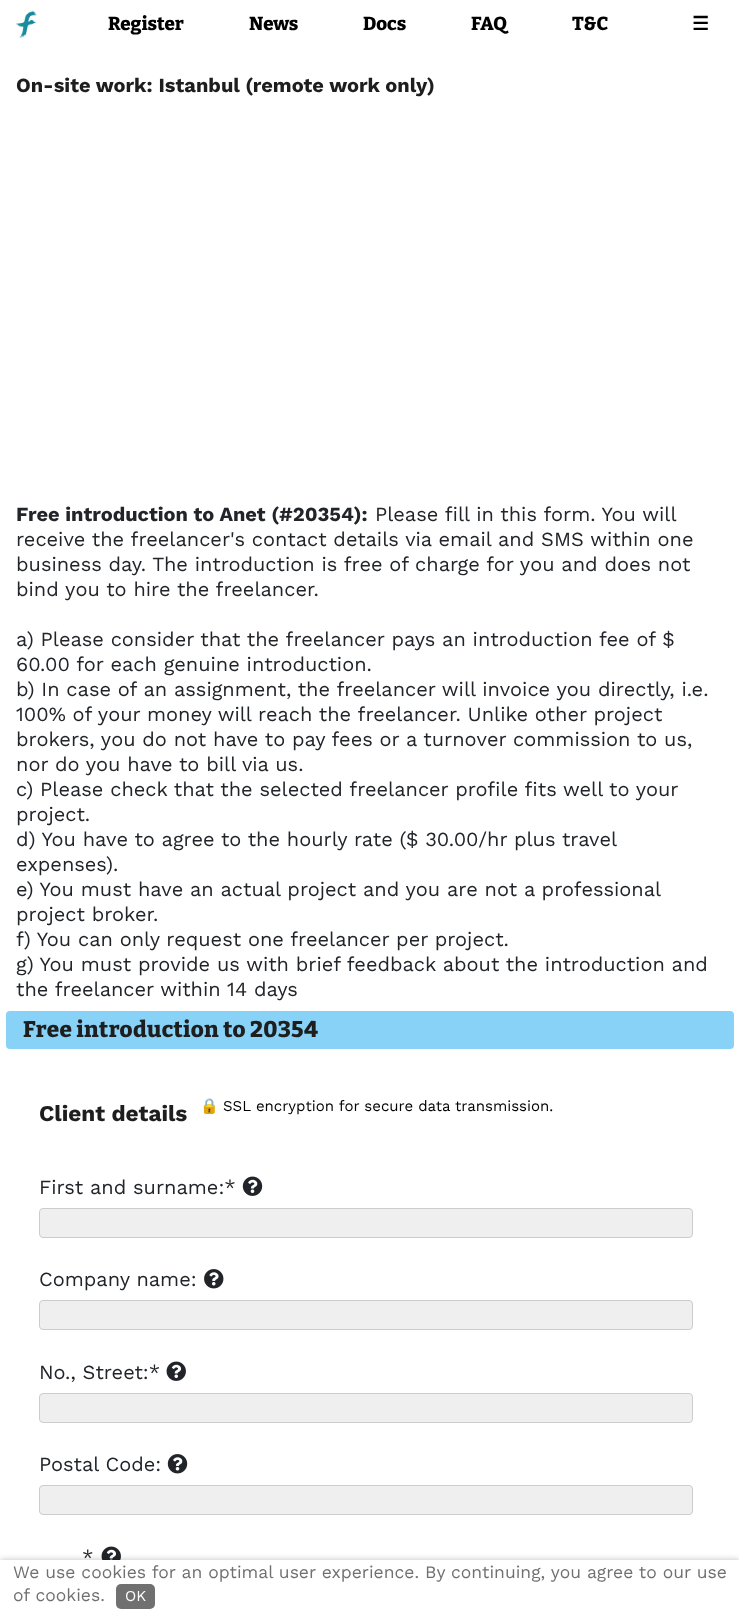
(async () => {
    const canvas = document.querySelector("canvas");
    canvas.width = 739;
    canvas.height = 1611;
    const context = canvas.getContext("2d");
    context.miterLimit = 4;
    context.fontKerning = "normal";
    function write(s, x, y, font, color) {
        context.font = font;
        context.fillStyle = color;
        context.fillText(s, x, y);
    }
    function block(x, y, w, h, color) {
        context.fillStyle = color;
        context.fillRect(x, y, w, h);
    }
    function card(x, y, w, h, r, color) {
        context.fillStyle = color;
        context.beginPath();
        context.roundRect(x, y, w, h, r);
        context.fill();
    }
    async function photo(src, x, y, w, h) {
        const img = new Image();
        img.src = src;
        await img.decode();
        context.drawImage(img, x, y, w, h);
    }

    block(0, 0, 739, 1611, "rgb(255, 255, 255)");
    await photo("media/1.png", 16, 10, 21, 28);
    write("Register", 108, 30, "100 18.75px Bitter", "rgb(0, 0, 0)");
    write("News", 249, 30, "100 18.75px Bitter", "rgb(0, 0, 0)");
    write("Docs", 363, 30, "100 18.75px Bitter", "rgb(0, 0, 0)");
    write("FAQ", 471, 30, "100 18.75px Bitter", "rgb(0, 0, 0)");
    write("T&C", 572, 30, "100 18.75px Bitter", "rgb(0, 0, 0)");
    write("☰", 692, 30, "bold 18.75px DejaVu Sans", "rgb(0, 0, 0)");
    write("On-site work: Istanbul (remote work only)", 16, 92, "bold 20px Work Sans", "rgb(30, 30, 30)");
    write("Free introduction to Anet (#20354):", 16, 521, "bold 20px Work Sans", "rgb(33, 37, 41)");
    write("Please fill in this form. You will", 375, 521, "20px Work Sans", "rgb(33, 37, 41)");
    write("receive the freelancer's contact details via email and SMS within one", 16, 546, "20px Work Sans", "rgb(33, 37, 41)");
    write("business day. The introduction is free of charge for you and does not", 16, 571, "20px Work Sans", "rgb(33, 37, 41)");
    write("bind you to hire the freelancer.", 16, 596, "20px Work Sans", "rgb(33, 37, 41)");
    write("a) Please consider that the freelancer pays an introduction fee of $", 16, 646, "20px Work Sans", "rgb(33, 37, 41)");
    write("60.00 for each genuine introduction.", 16, 671, "20px Work Sans", "rgb(33, 37, 41)");
    write("b) In case of an assignment, the freelancer will invoice you directly, i.e.", 16, 696, "20px Work Sans", "rgb(33, 37, 41)");
    write("100% of your money will reach the freelancer. Unlike other project", 16, 721, "20px Work Sans", "rgb(33, 37, 41)");
    write("brokers, you do not have to pay fees or a turnover commission to us,", 16, 746, "20px Work Sans", "rgb(33, 37, 41)");
    write("nor do you have to bill via us.", 16, 771, "20px Work Sans", "rgb(33, 37, 41)");
    write("c) Please check that the selected freelancer profile fits well to your", 16, 796, "20px Work Sans", "rgb(33, 37, 41)");
    write("project.", 16, 821, "20px Work Sans", "rgb(33, 37, 41)");
    write("d) You have to agree to the hourly rate ($ 30.00/hr plus travel", 16, 846, "20px Work Sans", "rgb(33, 37, 41)");
    write("expenses).", 16, 871, "20px Work Sans", "rgb(33, 37, 41)");
    write("e) You must have an actual project and you are not a professional", 16, 896, "20px Work Sans", "rgb(33, 37, 41)");
    write("project broker.", 16, 921, "20px Work Sans", "rgb(33, 37, 41)");
    write("f) You can only request one freelancer per project.", 16, 946, "20px Work Sans", "rgb(33, 37, 41)");
    write("g) You must provide us with brief feedback about the introduction and", 16, 971, "20px Work Sans", "rgb(33, 37, 41)");
    write("the freelancer within 14 days", 16, 996, "20px Work Sans", "rgb(33, 37, 41)");
    card(6, 1011, 728, 38, 4, "rgb(137, 210, 247)");
    context.letterSpacing = "0.35px";
    write("Free introduction to 20354", 23, 1037, "100 22.5px Bitter", "rgb(30, 30, 30)");
    context.letterSpacing = "0px";
    write("Client details", 39, 1121, "bold 22.5px Work Sans", "rgb(30, 30, 30)");
    write("🔒", 200, 1111, "15px Noto Color Emoji", "rgb(0, 0, 0)");
    write("SSL encryption for secure data transmission.", 223, 1111, "15px Work Sans", "rgb(0, 0, 0)");
    write("First and surname:*", 39, 1194, "20px Work Sans", "rgb(33, 37, 41)");
    await photo("media/2.png", 242, 1176, 21, 20);
    context.fillStyle = "rgb(239, 239, 239)";
    context.beginPath();
    context.roundRect(39.5, 1208.5, 653, 29, 3.5);
    context.fill();
    context.strokeStyle = "rgb(204, 204, 204)";
    context.stroke();
    write("Company name:", 39, 1286, "20px Work Sans", "rgb(33, 37, 41)");
    await photo("media/3.png", 204, 1269, 20, 20);
    context.fillStyle = "rgb(239, 239, 239)";
    context.beginPath();
    context.roundRect(39.5, 1300.5, 653, 29, 3.5);
    context.fill();
    context.stroke();
    write("No., Street:*", 39, 1379, "20px Work Sans", "rgb(33, 37, 41)");
    await photo("media/4.png", 166, 1361, 20, 20);
    context.fillStyle = "rgb(239, 239, 239)";
    context.beginPath();
    context.roundRect(39.5, 1393.5, 653, 29, 3.5);
    context.fill();
    context.stroke();
    write("Postal Code:", 39, 1471, "20px Work Sans", "rgb(33, 37, 41)");
    await photo("media/5.png", 167, 1454, 21, 20);
    context.fillStyle = "rgb(239, 239, 239)";
    context.beginPath();
    context.roundRect(39.5, 1485.5, 653, 29, 3.5);
    context.fill();
    context.stroke();
    write("*", 82, 1564, "20px Work Sans", "rgb(33, 37, 41)");
    await photo("media/6.png", 101, 1546, 20, 14);
    context.fillStyle = "rgba(0, 0, 0, 0.25)";
    context.filter = "blur(3px)";
    context.beginPath();
    context.rect(0, 1560, 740, 51);
    context.fill();
    context.filter = "none";
    block(0, 1560, 739, 51, "rgb(255, 255, 255)");
    write("We use cookies for an optimal user experience. By continuing, you agree to our use", 13, 1578, "17.5px Work Sans", "rgb(112, 112, 112)");
    write("of cookies.", 13, 1601, "17.5px Work Sans", "rgb(112, 112, 112)");
    card(116, 1584, 39, 25, 5, "rgb(112, 112, 112)");
    write("OK", 125, 1601, "15px Work Sans", "rgb(255, 255, 255)");
})();
